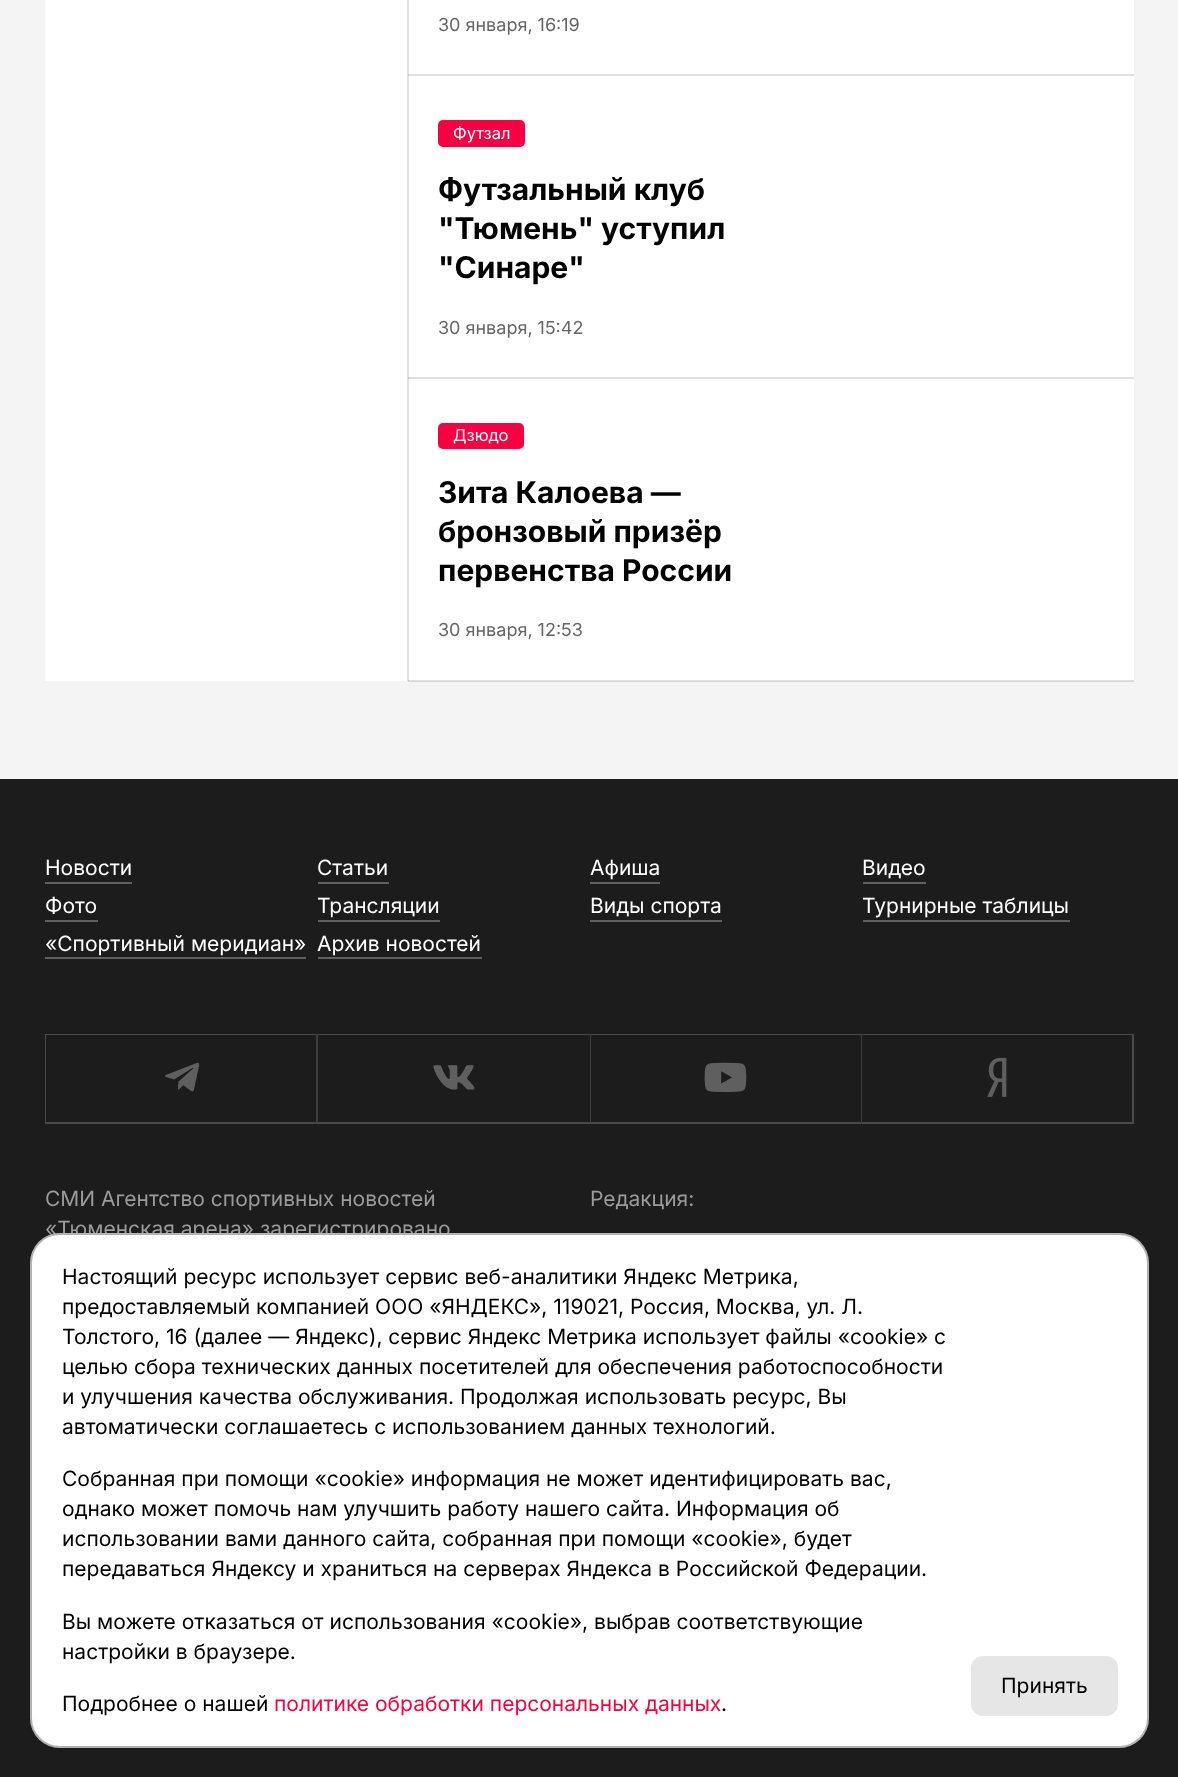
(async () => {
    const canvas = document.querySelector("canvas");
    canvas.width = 1178;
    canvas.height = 1777;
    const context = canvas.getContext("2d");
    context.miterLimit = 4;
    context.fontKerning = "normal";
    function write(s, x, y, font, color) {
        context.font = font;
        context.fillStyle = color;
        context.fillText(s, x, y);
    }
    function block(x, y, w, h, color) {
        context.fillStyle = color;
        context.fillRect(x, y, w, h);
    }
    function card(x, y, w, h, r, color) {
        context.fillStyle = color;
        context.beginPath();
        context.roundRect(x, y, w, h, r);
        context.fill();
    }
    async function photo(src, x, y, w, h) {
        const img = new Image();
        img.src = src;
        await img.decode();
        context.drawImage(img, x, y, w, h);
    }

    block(0, 0, 1178, 1777, "rgb(244, 244, 244)");
    block(408, 681, 726, 1, "rgb(215, 215, 215)");
    block(45, 0, 1089, 681, "rgb(255, 255, 255)");
    block(408, 680, 726, 1, "rgb(224, 224, 224)");
    block(408, 377, 726, 2, "rgb(224, 224, 224)");
    block(408, 74, 726, 2, "rgb(224, 224, 224)");
    block(407, 0, 2, 681, "rgb(224, 224, 224)");
    block(408, 680, 1, 1, "rgb(197, 197, 197)");
    block(408, 377, 1, 2, "rgb(197, 197, 197)");
    block(408, 74, 1, 2, "rgb(197, 197, 197)");
    write("30 января, 16:19", 438, 31, "18px Inter", "rgb(102, 102, 102)");
    card(438, 120, 87, 27, 5, "rgb(247, 0, 66)");
    write("Футзал", 453, 139, "16.5px Inter", "rgb(255, 255, 255)");
    write("Футзальный клуб", 438, 200, "bold 30px Inter", "rgb(0, 0, 0)");
    write("\"Тюмень\" уступил", 438, 239, "bold 30px Inter", "rgb(0, 0, 0)");
    write("\"Синаре\"", 438, 278, "bold 30px Inter", "rgb(0, 0, 0)");
    write("30 января, 15:42", 438, 334, "18px Inter", "rgb(102, 102, 102)");
    card(438, 423, 86, 26, 5, "rgb(247, 0, 66)");
    write("Дзюдо", 453, 441, "16.5px Inter", "rgb(255, 255, 255)");
    write("Зита Калоева —", 438, 503, "bold 30px Inter", "rgb(0, 0, 0)");
    write("бронзовый призёр", 438, 542, "bold 30px Inter", "rgb(0, 0, 0)");
    write("первенства России", 438, 581, "bold 30px Inter", "rgb(0, 0, 0)");
    write("30 января, 12:53", 438, 636, "18px Inter", "rgb(102, 102, 102)");
    block(0, 779, 1178, 998, "rgb(28, 28, 28)");
    write("Новости", 45, 875, "21px Inter", "rgb(255, 255, 255)");
    block(45, 882, 87, 2, "rgb(96, 96, 96)");
    write("Статьи", 317, 875, "21px Inter", "rgb(255, 255, 255)");
    block(318, 882, 71, 2, "rgb(96, 96, 96)");
    write("Афиша", 590, 875, "21px Inter", "rgb(255, 255, 255)");
    block(590, 882, 70, 2, "rgb(96, 96, 96)");
    write("Видео", 862, 875, "21px Inter", "rgb(255, 255, 255)");
    block(863, 882, 63, 2, "rgb(96, 96, 96)");
    write("Фото", 45, 913, "21px Inter", "rgb(255, 255, 255)");
    block(45, 920, 53, 2, "rgb(96, 96, 96)");
    write("Трансляции", 317, 913, "21px Inter", "rgb(255, 255, 255)");
    block(318, 920, 122, 2, "rgb(96, 96, 96)");
    write("Виды спорта", 590, 913, "21px Inter", "rgb(255, 255, 255)");
    block(590, 920, 132, 2, "rgb(96, 96, 96)");
    write("Турнирные таблицы", 862, 913, "21px Inter", "rgb(255, 255, 255)");
    block(863, 920, 207, 2, "rgb(96, 96, 96)");
    write("«Спортивный меридиан»", 45, 951, "21px Inter", "rgb(255, 255, 255)");
    block(45, 957, 261, 2, "rgb(96, 96, 96)");
    write("Архив новостей", 317, 951, "21px Inter", "rgb(255, 255, 255)");
    block(318, 957, 164, 2, "rgb(96, 96, 96)");
    context.fillStyle = "rgb(73, 73, 73)";
    context.beginPath();
    context.moveTo(45, 1034);
    context.lineTo(316, 1034);
    context.lineTo(316, 1035);
    context.lineTo(46, 1035);
    context.closePath();
    context.fill();
    context.beginPath();
    context.moveTo(316, 1124);
    context.lineTo(45, 1124);
    context.lineTo(46, 1122);
    context.lineTo(316, 1122);
    context.closePath();
    context.fill();
    context.fillStyle = "rgba(255, 255, 255, 0.2)";
    context.beginPath();
    context.moveTo(45, 1124);
    context.lineTo(45, 1034);
    context.lineTo(46, 1035);
    context.lineTo(46, 1122);
    context.closePath();
    context.fill();
    await photo("media/1.png", 165, 1062, 35, 30);
    context.fillStyle = "rgb(73, 73, 73)";
    context.beginPath();
    context.moveTo(316, 1034);
    context.lineTo(590, 1034);
    context.lineTo(590, 1035);
    context.lineTo(318, 1035);
    context.closePath();
    context.fill();
    context.beginPath();
    context.moveTo(590, 1124);
    context.lineTo(316, 1124);
    context.lineTo(318, 1122);
    context.lineTo(590, 1122);
    context.closePath();
    context.fill();
    context.fillStyle = "rgba(196, 196, 196, 0.2)";
    context.beginPath();
    context.moveTo(316, 1124);
    context.lineTo(316, 1034);
    context.lineTo(318, 1035);
    context.lineTo(318, 1122);
    context.closePath();
    context.fill();
    await photo("media/2.png", 433, 1065, 42, 25);
    context.fillStyle = "rgb(73, 73, 73)";
    context.beginPath();
    context.moveTo(590, 1034);
    context.lineTo(861, 1034);
    context.lineTo(861, 1035);
    context.lineTo(591, 1035);
    context.closePath();
    context.fill();
    context.beginPath();
    context.moveTo(861, 1124);
    context.lineTo(590, 1124);
    context.lineTo(591, 1122);
    context.lineTo(861, 1122);
    context.closePath();
    context.fill();
    context.fillStyle = "rgba(196, 196, 196, 0.2)";
    context.beginPath();
    context.moveTo(590, 1124);
    context.lineTo(590, 1034);
    context.lineTo(591, 1035);
    context.lineTo(591, 1122);
    context.closePath();
    context.fill();
    await photo("media/3.png", 704, 1062, 43, 30);
    context.fillStyle = "rgb(73, 73, 73)";
    context.beginPath();
    context.moveTo(861, 1034);
    context.lineTo(1134, 1034);
    context.lineTo(1132, 1035);
    context.lineTo(862, 1035);
    context.closePath();
    context.fill();
    context.fillStyle = "rgba(255, 255, 255, 0.2)";
    context.beginPath();
    context.moveTo(1134, 1034);
    context.lineTo(1134, 1124);
    context.lineTo(1132, 1122);
    context.lineTo(1132, 1035);
    context.closePath();
    context.fill();
    context.beginPath();
    context.moveTo(1134, 1124);
    context.lineTo(861, 1124);
    context.lineTo(862, 1122);
    context.lineTo(1132, 1122);
    context.closePath();
    context.fill();
    context.fillStyle = "rgba(196, 196, 196, 0.2)";
    context.beginPath();
    context.moveTo(861, 1124);
    context.lineTo(861, 1034);
    context.lineTo(862, 1035);
    context.lineTo(862, 1122);
    context.closePath();
    context.fill();
    await photo("media/4.png", 987, 1057, 20, 40);
    write("СМИ Агентство спортивных новостей", 45, 1206, "21px Inter", "rgb(155, 155, 155)");
    write("«Тюменская арена» зарегистрировано", 45, 1236, "21px Inter", "rgb(155, 155, 155)");
    write("Редакция:", 590, 1206, "21px Inter", "rgb(155, 155, 155)");
    card(30, 1233, 1119, 515, 30, "rgb(255, 255, 255)");
    context.beginPath();
    context.roundRect(31, 1234, 1117, 513, 29);
    context.strokeStyle = "rgba(0, 0, 0, 0.3)";
    context.lineWidth = 2;
    context.stroke();
    write("Настоящий ресурс использует сервис веб-аналитики Яндекс Метрика,", 62, 1284, "21px Inter", "rgb(0, 0, 0)");
    write("предоставляемый компанией ООО «ЯНДЕКС», 119021, Россия, Москва, ул. Л.", 62, 1314, "21px Inter", "rgb(0, 0, 0)");
    write("Толстого, 16 (далее — Яндекс), сервис Яндекс Метрика использует файлы «cookie» с", 62, 1344, "21px Inter", "rgb(0, 0, 0)");
    write("целью сбора технических данных посетителей для обеспечения работоспособности", 62, 1374, "21px Inter", "rgb(0, 0, 0)");
    write("и улучшения качества обслуживания. Продолжая использовать ресурс, Вы", 62, 1404, "21px Inter", "rgb(0, 0, 0)");
    write("автоматически соглашаетесь с использованием данных технологий.", 62, 1434, "21px Inter", "rgb(0, 0, 0)");
    write("Собранная при помощи «cookie» информация не может идентифицировать вас,", 62, 1486, "21px Inter", "rgb(0, 0, 0)");
    write("однако может помочь нам улучшить работу нашего сайта. Информация об", 62, 1516, "21px Inter", "rgb(0, 0, 0)");
    write("использовании вами данного сайта, собранная при помощи «cookie», будет", 62, 1546, "21px Inter", "rgb(0, 0, 0)");
    write("передаваться Яндексу и храниться на серверах Яндекса в Российской Федерации.", 62, 1576, "21px Inter", "rgb(0, 0, 0)");
    write("Вы можете отказаться от использования «cookie», выбрав соответствующие", 62, 1629, "21px Inter", "rgb(0, 0, 0)");
    write("настройки в браузере.", 62, 1659, "21px Inter", "rgb(0, 0, 0)");
    card(971, 1656, 147, 60, 12, "rgb(230, 230, 230)");
    write("Принять", 1001, 1693, "21px Inter", "rgb(0, 0, 0)");
    write("Подробнее о нашей", 62, 1711, "21px Inter", "rgb(0, 0, 0)");
    write("политике обработки персональных данных", 274, 1711, "21px Inter", "rgb(247, 0, 66)");
    write(".", 721, 1711, "21px Inter", "rgb(0, 0, 0)");
})();
